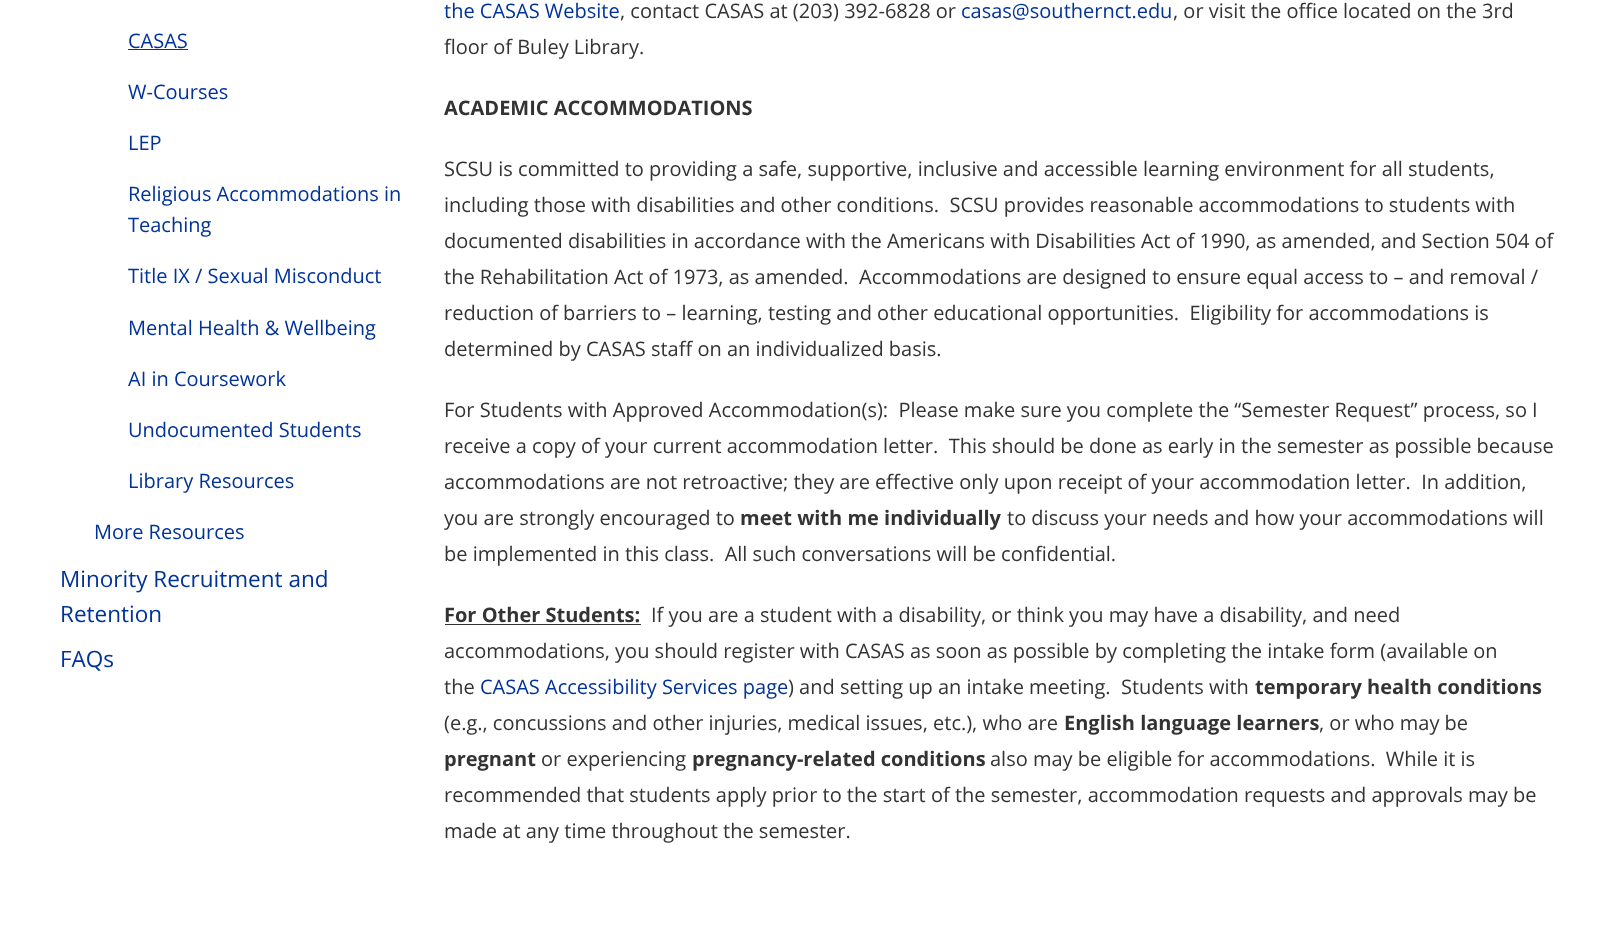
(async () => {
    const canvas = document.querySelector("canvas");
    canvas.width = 1619;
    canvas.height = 939;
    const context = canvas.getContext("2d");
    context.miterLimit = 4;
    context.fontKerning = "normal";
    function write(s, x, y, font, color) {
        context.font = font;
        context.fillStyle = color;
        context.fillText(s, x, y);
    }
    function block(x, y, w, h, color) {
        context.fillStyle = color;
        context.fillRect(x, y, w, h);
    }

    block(0, 0, 1619, 939, "rgb(255, 255, 255)");
    write("CASAS", 128, 48, "20px Open Sans", "rgb(0, 51, 153)");
    block(128, 49, 60, 1, "rgb(0, 51, 153)");
    write("W-Courses", 128, 99, "20px Open Sans", "rgb(0, 51, 153)");
    write("LEP", 128, 150, "20px Open Sans", "rgb(0, 51, 153)");
    write("Religious Accommodations in", 128, 201, "20px Open Sans", "rgb(0, 51, 153)");
    write("Teaching", 128, 232, "20px Open Sans", "rgb(0, 51, 153)");
    write("Title IX / Sexual Misconduct", 128, 283, "20px Open Sans", "rgb(0, 51, 153)");
    write("Mental Health & Wellbeing", 128, 335, "20px Open Sans", "rgb(0, 51, 153)");
    write("AI in Coursework", 128, 386, "20px Open Sans", "rgb(0, 51, 153)");
    write("Undocumented Students", 128, 437, "20px Open Sans", "rgb(0, 51, 153)");
    write("Library Resources", 128, 488, "20px Open Sans", "rgb(0, 51, 153)");
    write("More Resources", 94, 539, "20px Open Sans", "rgb(0, 51, 153)");
    write("Minority Recruitment and", 60, 587, "22.5px Open Sans", "rgb(0, 51, 153)");
    write("Retention", 60, 622, "22.5px Open Sans", "rgb(0, 51, 153)");
    write("FAQs", 60, 667, "22.5px Open Sans", "rgb(0, 51, 153)");
    write("the CASAS Website", 444, 18, "20px Open Sans", "rgb(0, 51, 153)");
    write(", contact CASAS at (203) 392-6828 or", 620, 18, "20px Open Sans", "rgb(51, 51, 51)");
    write("casas@southernct.edu", 961, 18, "20px Open Sans", "rgb(0, 51, 153)");
    write(", or visit the office located on the 3rd", 1173, 18, "20px Open Sans", "rgb(51, 51, 51)");
    write("floor of Buley Library.", 444, 54, "20px Open Sans", "rgb(51, 51, 51)");
    write("ACADEMIC ACCOMMODATIONS", 444, 115, "bold 20px Open Sans", "rgb(51, 51, 51)");
    write("SCSU is committed to providing a safe, supportive, inclusive and accessible learning environment for all students,", 444, 176, "20px Open Sans", "rgb(51, 51, 51)");
    write("including those with disabilities and other conditions.  SCSU provides reasonable accommodations to students with", 444, 212, "20px Open Sans", "rgb(51, 51, 51)");
    write("documented disabilities in accordance with the Americans with Disabilities Act of 1990, as amended, and Section 504 of", 444, 248, "20px Open Sans", "rgb(51, 51, 51)");
    write("the Rehabilitation Act of 1973, as amended.  Accommodations are designed to ensure equal access to – and removal /", 444, 284, "20px Open Sans", "rgb(51, 51, 51)");
    write("reduction of barriers to – learning, testing and other educational opportunities.  Eligibility for accommodations is", 444, 320, "20px Open Sans", "rgb(51, 51, 51)");
    write("determined by CASAS staff on an individualized basis.", 444, 356, "20px Open Sans", "rgb(51, 51, 51)");
    write("For Students with Approved Accommodation(s):  Please make sure you complete the “Semester Request” process, so I", 444, 417, "20px Open Sans", "rgb(51, 51, 51)");
    write("receive a copy of your current accommodation letter.  This should be done as early in the semester as possible because", 444, 453, "20px Open Sans", "rgb(51, 51, 51)");
    write("accommodations are not retroactive; they are effective only upon receipt of your accommodation letter.  In addition,", 444, 489, "20px Open Sans", "rgb(51, 51, 51)");
    write("you are strongly encouraged to", 444, 525, "20px Open Sans", "rgb(51, 51, 51)");
    write("meet with me individually", 740, 525, "bold 20px Open Sans", "rgb(51, 51, 51)");
    write("to discuss your needs and how your accommodations will", 1007, 525, "20px Open Sans", "rgb(51, 51, 51)");
    write("be implemented in this class.  All such conversations will be confidential.", 444, 561, "20px Open Sans", "rgb(51, 51, 51)");
    write("For Other Students:", 444, 622, "bold 20px Open Sans", "rgb(51, 51, 51)");
    block(445, 624, 196, 1, "rgb(51, 51, 51)");
    write("If you are a student with a disability, or think you may have a disability, and need", 651, 622, "20px Open Sans", "rgb(51, 51, 51)");
    write("accommodations, you should register with CASAS as soon as possible by completing the intake form (available on", 444, 658, "20px Open Sans", "rgb(51, 51, 51)");
    write("the", 444, 694, "20px Open Sans", "rgb(51, 51, 51)");
    write("CASAS Accessibility Services page", 480, 694, "20px Open Sans", "rgb(0, 51, 153)");
    write(") and setting up an intake meeting.  Students with", 788, 694, "20px Open Sans", "rgb(51, 51, 51)");
    write("temporary health conditions", 1255, 694, "bold 20px Open Sans", "rgb(51, 51, 51)");
    write("(e.g., concussions and other injuries, medical issues, etc.), who are", 444, 730, "20px Open Sans", "rgb(51, 51, 51)");
    write("English language learners", 1064, 730, "bold 20px Open Sans", "rgb(51, 51, 51)");
    write(", or who may be", 1319, 730, "20px Open Sans", "rgb(51, 51, 51)");
    write("pregnant", 444, 766, "bold 20px Open Sans", "rgb(51, 51, 51)");
    write("or experiencing", 541, 766, "20px Open Sans", "rgb(51, 51, 51)");
    write("pregnancy-related conditions", 692, 766, "bold 20px Open Sans", "rgb(51, 51, 51)");
    write("also may be eligible for accommodations.  While it is", 990, 766, "20px Open Sans", "rgb(51, 51, 51)");
    write("recommended that students apply prior to the start of the semester, accommodation requests and approvals may be", 444, 802, "20px Open Sans", "rgb(51, 51, 51)");
    write("made at any time throughout the semester.", 444, 838, "20px Open Sans", "rgb(51, 51, 51)");
})();
